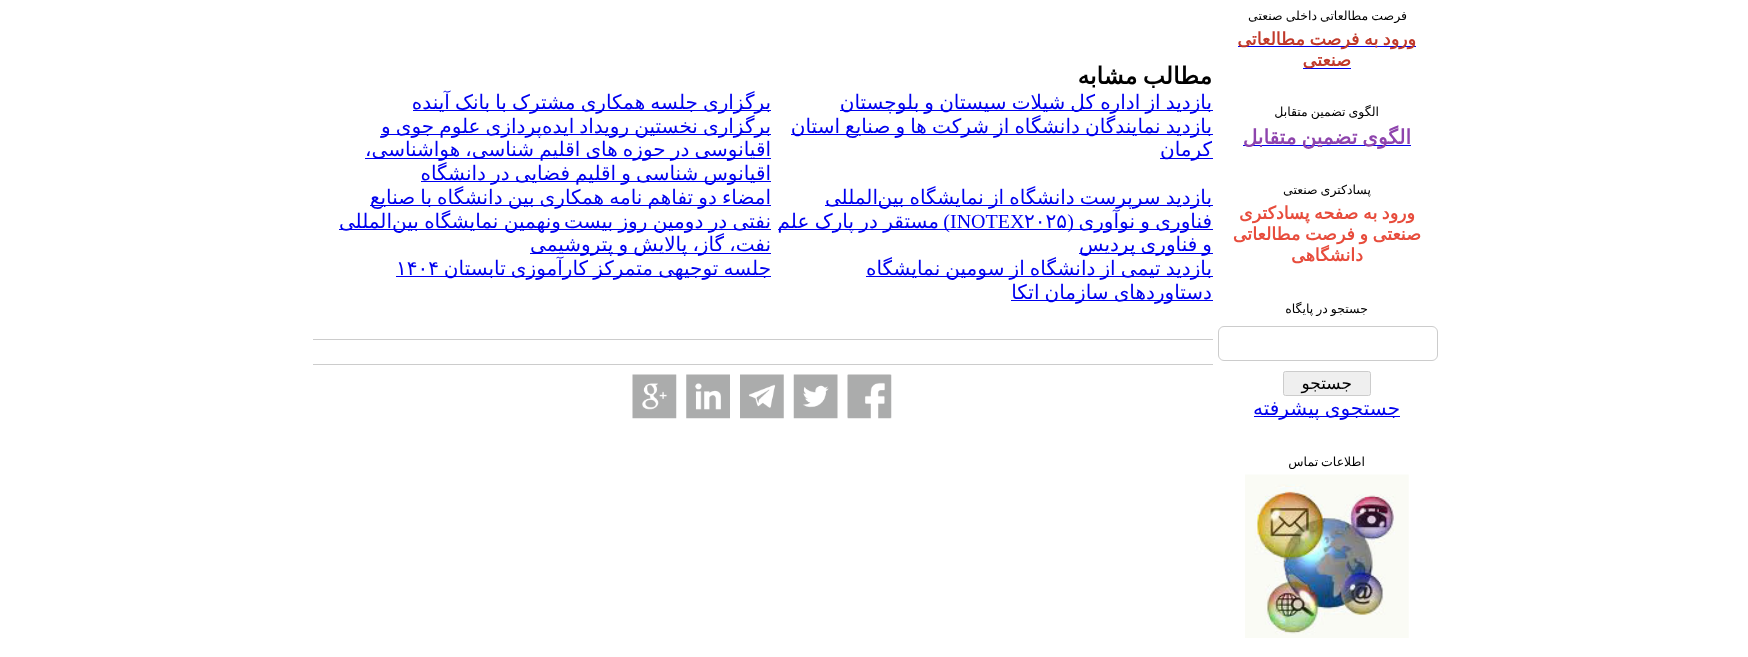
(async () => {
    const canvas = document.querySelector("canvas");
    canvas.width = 1748;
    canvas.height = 657;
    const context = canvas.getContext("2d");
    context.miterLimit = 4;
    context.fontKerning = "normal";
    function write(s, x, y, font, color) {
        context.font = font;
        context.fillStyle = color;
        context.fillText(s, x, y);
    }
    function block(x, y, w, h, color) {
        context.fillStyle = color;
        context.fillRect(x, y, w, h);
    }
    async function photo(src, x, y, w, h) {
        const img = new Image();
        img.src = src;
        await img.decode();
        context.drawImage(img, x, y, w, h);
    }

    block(0, 0, 1748, 657, "rgb(255, 255, 255)");
    context.wordSpacing = "-1px";
    context.direction = "rtl";
    write("فرصت مطالعاتی داخلی صنعتی", 1407, 20, "12.5px DejaVu Sans", "rgb(0, 0, 0)");
    block(1238, 46, 178, 1, "rgb(0, 0, 238)");
    write("ورود به فرصت مطالعاتی", 1416, 45, "bold 17.5px DejaVu Sans", "rgb(192, 57, 43)");
    block(1303, 68, 48, 1, "rgb(0, 0, 238)");
    context.wordSpacing = "0px";
    write("صنعتی", 1351, 66, "bold 17.5px DejaVu Sans", "rgb(192, 57, 43)");
    context.wordSpacing = "-1px";
    write("الگوی تضمین متقابل", 1379, 116, "12.5px DejaVu Sans", "rgb(0, 0, 0)");
    block(1243, 145, 168, 1, "rgb(0, 0, 238)");
    context.wordSpacing = "-1.25px";
    write("الگوی تضمین متقابل", 1411, 144, "bold 20px DejaVu Sans", "rgb(142, 68, 173)");
    context.wordSpacing = "-1px";
    write("پسادکتری صنعتی", 1371, 194, "12.5px DejaVu Sans", "rgb(0, 0, 0)");
    write("ورود به صفحه پسادکتری", 1415, 219, "bold 17.5px DejaVu Sans", "rgb(231, 76, 60)");
    write("صنعتی و فرصت مطالعاتی", 1421, 240, "bold 17.5px DejaVu Sans", "rgb(231, 76, 60)");
    context.wordSpacing = "0px";
    write("دانشگاهی", 1363, 261, "bold 17.5px DejaVu Sans", "rgb(231, 76, 60)");
    context.wordSpacing = "-1px";
    write("جستجو در پایگاه", 1368, 313, "12.5px DejaVu Sans", "rgb(0, 0, 0)");
    context.beginPath();
    context.roundRect(1218.5, 326.5, 219, 34, 5.5);
    context.strokeStyle = "rgb(204, 204, 204)";
    context.stroke();
    context.fillStyle = "rgb(239, 239, 239)";
    context.beginPath();
    context.roundRect(1283.5, 371.5, 87, 24, 2);
    context.fill();
    context.stroke();
    context.wordSpacing = "0px";
    write("جستجو", 1352, 389, "17px DejaVu Sans", "rgb(0, 0, 0)");
    block(1254, 416, 146, 1, "rgb(0, 0, 238)");
    context.wordSpacing = "-1.25px";
    write("جستجوی پیشرفته", 1400, 415, "20px DejaVu Sans", "rgb(0, 0, 238)");
    context.wordSpacing = "-1px";
    write("اطلاعات تماس", 1365, 466, "12.5px DejaVu Sans", "rgb(0, 0, 0)");
    await photo("media/1.png", 1245, 474, 164, 164);
    context.wordSpacing = "-2px";
    write("مطالب مشابه", 1212, 84, "bold 23.5px DejaVu Sans", "rgb(0, 0, 0)");
    block(840, 110, 373, 1, "rgb(0, 0, 238)");
    context.wordSpacing = "-1.25px";
    write("بازدید از اداره کل شیلات سیستان و بلوچستان", 1212, 109, "20px DejaVu Sans", "rgb(0, 0, 238)");
    block(413, 110, 358, 1, "rgb(0, 0, 238)");
    write("برگزاری جلسه همکاری مشترک با بانک آینده", 771, 109, "20px DejaVu Sans", "rgb(0, 0, 238)");
    block(791, 134, 422, 1, "rgb(0, 0, 238)");
    write("بازدید نمایندگان دانشگاه از شرکت ها و صنایع استان", 1212, 133, "20px DejaVu Sans", "rgb(0, 0, 238)");
    block(1160, 158, 53, 1, "rgb(0, 0, 238)");
    context.wordSpacing = "0px";
    write("کرمان", 1212, 156, "20px DejaVu Sans", "rgb(0, 0, 238)");
    block(381, 134, 390, 1, "rgb(0, 0, 238)");
    context.wordSpacing = "-1.25px";
    write("پردازی علوم جوی و", 542, 133, "20px DejaVu Sans", "rgb(0, 0, 238)");
    write("برگزاری نخستین رویداد ایده", 771, 133, "20px DejaVu Sans", "rgb(0, 0, 238)");
    block(365, 158, 406, 1, "rgb(0, 0, 238)");
    write("اقیانوسی در حوزه های اقلیم شناسی، هواشناسی،", 771, 156, "20px DejaVu Sans", "rgb(0, 0, 238)");
    block(421, 181, 350, 1, "rgb(0, 0, 238)");
    write("اقیانوس شناسی و اقلیم فضایی در دانشگاه", 771, 180, "20px DejaVu Sans", "rgb(0, 0, 238)");
    block(825, 205, 388, 1, "rgb(0, 0, 238)");
    write("بازدید سرپرست دانشگاه از نمایشگاه بین", 1212, 204, "20px DejaVu Sans", "rgb(0, 0, 238)");
    context.wordSpacing = "0px";
    write("المللی", 878, 204, "20px DejaVu Sans", "rgb(0, 0, 238)");
    block(778, 229, 435, 1, "rgb(0, 0, 238)");
    context.wordSpacing = "-1px";
    write("فناوری و نوآوری", 1212, 228, "20px DejaVu Sans", "rgb(0, 0, 238)");
    context.wordSpacing = "0px";
    write("(", 1074, 228, "20px Liberation Serif", "rgb(0, 0, 238)");
    context.direction = "ltr";
    write("۲۰۲۵", 1024, 228, "20px DejaVu Sans", "rgb(0, 0, 238)");
    write("INOTEX", 950, 228, "20px Liberation Serif", "rgb(0, 0, 238)");
    context.direction = "rtl";
    write(")", 950, 228, "20px Liberation Serif", "rgb(0, 0, 238)");
    context.wordSpacing = "-1px";
    write("مستقر در پارک علم", 939, 228, "20px DejaVu Sans", "rgb(0, 0, 238)");
    block(1079, 253, 134, 1, "rgb(0, 0, 238)");
    context.wordSpacing = "-1.25px";
    write("و فناوری پردیس", 1212, 251, "20px DejaVu Sans", "rgb(0, 0, 238)");
    block(370, 205, 401, 1, "rgb(0, 0, 238)");
    write("امضاء دو تفاهم نامه همکاری بین دانشگاه با صنایع", 771, 204, "20px DejaVu Sans", "rgb(0, 0, 238)");
    block(339, 229, 432, 1, "rgb(0, 0, 238)");
    context.wordSpacing = "-1px";
    write("نفتی در دومین روز بیست", 771, 228, "20px DejaVu Sans", "rgb(0, 0, 238)");
    write("ونهمین نمایشگاه بین", 561, 228, "20px DejaVu Sans", "rgb(0, 0, 238)");
    context.wordSpacing = "0px";
    write("المللی", 392, 228, "20px DejaVu Sans", "rgb(0, 0, 238)");
    block(530, 253, 241, 1, "rgb(0, 0, 238)");
    context.wordSpacing = "-1.25px";
    write("نفت، گاز، پالایش و پتروشیمی", 771, 251, "20px DejaVu Sans", "rgb(0, 0, 238)");
    block(866, 276, 347, 1, "rgb(0, 0, 238)");
    write("بازدید تیمی از دانشگاه از سومین نمایشگاه", 1212, 275, "20px DejaVu Sans", "rgb(0, 0, 238)");
    block(1011, 300, 202, 1, "rgb(0, 0, 238)");
    write("دستاوردهای سازمان اتکا", 1212, 299, "20px DejaVu Sans", "rgb(0, 0, 238)");
    block(396, 276, 375, 1, "rgb(0, 0, 238)");
    write("جلسه توجیهی متمرکز کارآموزی تابستان", 771, 275, "20px DejaVu Sans", "rgb(0, 0, 238)");
    context.wordSpacing = "0px";
    context.direction = "ltr";
    write("۱۴۰۴", 396, 275, "20px DejaVu Sans", "rgb(0, 0, 238)");
    block(313, 339, 900, 1, "rgb(204, 204, 204)");
    block(313, 364, 900, 1, "rgb(204, 204, 204)");
    await photo("media/2.png", 847, 374, 45, 45);
    await photo("media/3.png", 793, 374, 45, 45);
    await photo("media/4.png", 740, 374, 44, 45);
    await photo("media/5.png", 686, 374, 44, 45);
    await photo("media/6.png", 632, 374, 45, 45);
})();
